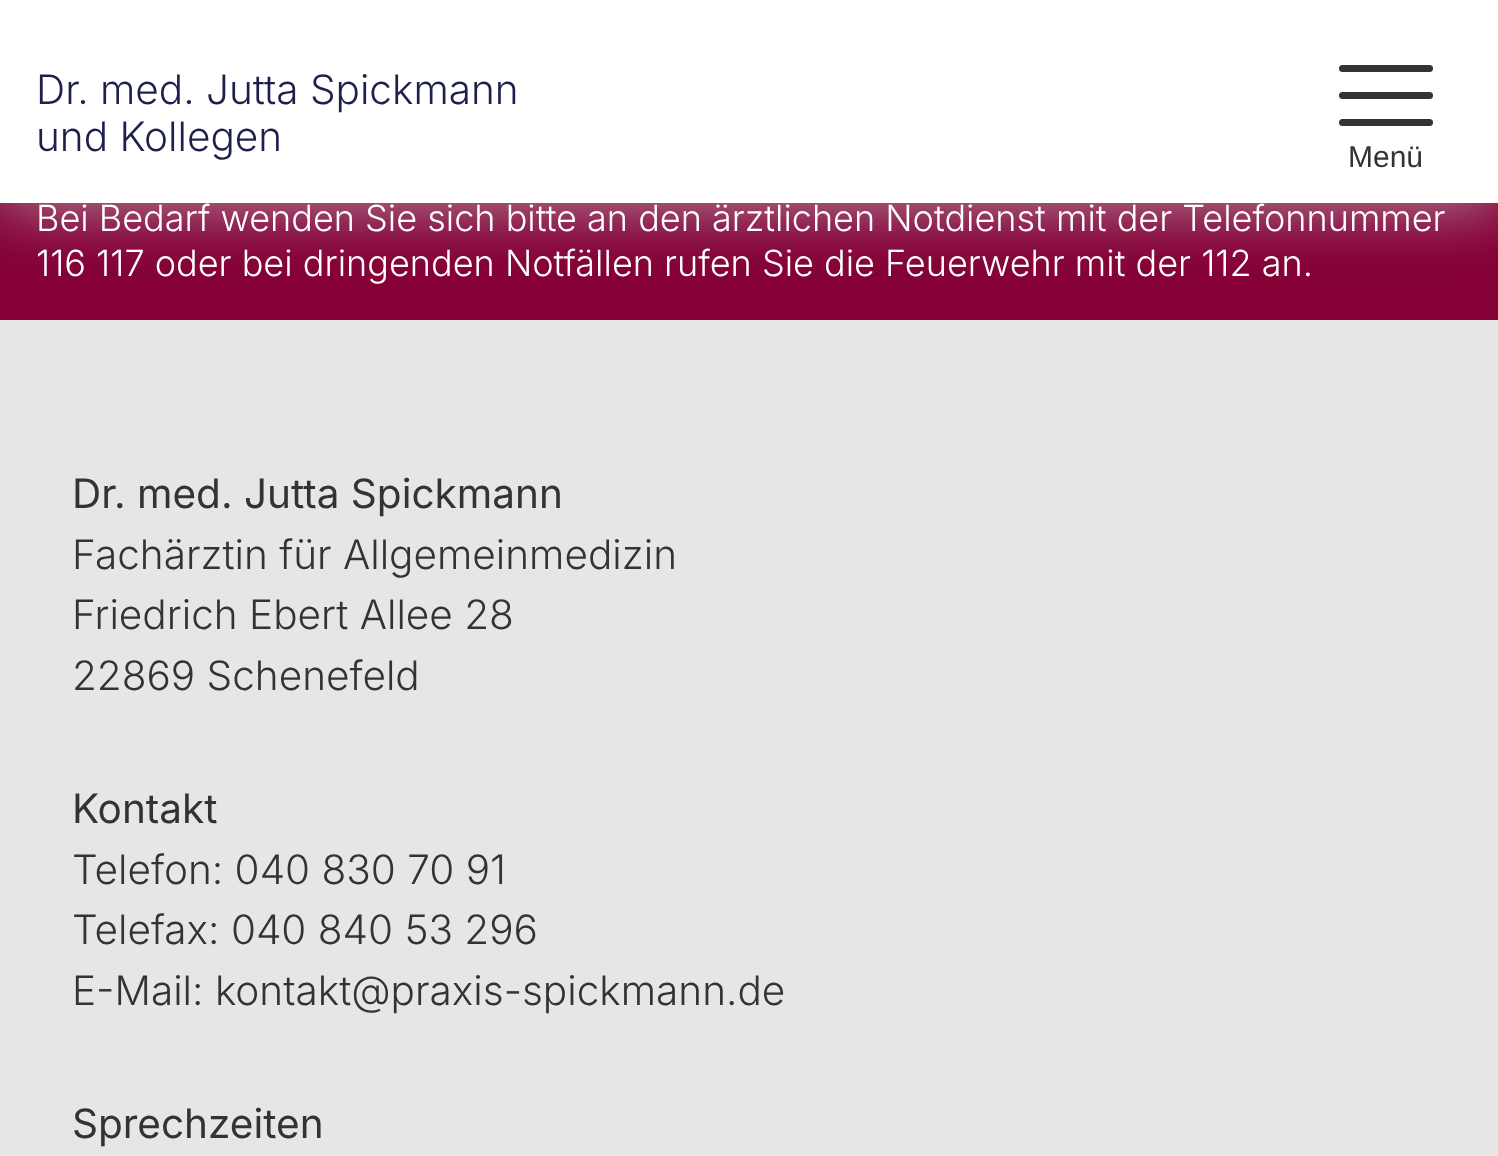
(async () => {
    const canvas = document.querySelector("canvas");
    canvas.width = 1498;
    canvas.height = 1156;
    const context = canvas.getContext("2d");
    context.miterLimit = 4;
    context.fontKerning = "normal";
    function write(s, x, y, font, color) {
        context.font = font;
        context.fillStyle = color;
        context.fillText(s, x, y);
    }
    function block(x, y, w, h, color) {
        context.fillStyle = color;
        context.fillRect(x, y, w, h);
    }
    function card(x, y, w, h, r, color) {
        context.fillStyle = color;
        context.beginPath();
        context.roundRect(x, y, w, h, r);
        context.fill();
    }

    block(0, 0, 1498, 1156, "rgb(133, 1, 54)");
    context.fillStyle = "rgba(206, 214, 216, 0.7)";
    context.filter = "blur(34px)";
    context.beginPath();
    context.rect(0, 0, 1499, 203);
    context.fill();
    context.filter = "none";
    block(0, 0, 1498, 203, "rgb(255, 255, 255)");
    write("Dr. med. Jutta Spickmann", 36, 104, "300 40.5px Inter", "rgb(30, 32, 76)");
    write("und Kollegen", 36, 151, "300 40.5px Inter", "rgb(30, 32, 76)");
    card(1339, 65, 94, 7, 3.5, "rgb(51, 51, 51)");
    card(1339, 92, 94, 7, 3.5, "rgb(51, 51, 51)");
    card(1339, 119, 94, 7, 3.5, "rgb(51, 51, 51)");
    write("Menü", 1348, 167, "30px Liberation Sans", "rgb(51, 51, 51)");
    write("Bei Bedarf wenden Sie sich bitte an den ärztlichen Notdienst mit der Telefonnummer", 36, 231, "300 36px Inter", "rgb(255, 255, 255)");
    write("116 117 oder bei dringenden Notfällen rufen Sie die Feuerwehr mit der 112 an.", 36, 276, "300 36px Inter", "rgb(255, 255, 255)");
    block(0, 320, 1498, 836, "rgb(230, 230, 230)");
    write("Dr. med. Jutta Spickmann", 72, 508, "40.5px Inter", "rgb(51, 51, 51)");
    write("Fachärztin für Allgemeinmedizin", 72, 569, "300 40.5px Inter", "rgb(51, 51, 51)");
    write("Friedrich Ebert Allee 28", 72, 629, "300 40.5px Inter", "rgb(51, 51, 51)");
    write("22869 Schenefeld", 72, 690, "300 40.5px Inter", "rgb(51, 51, 51)");
    write("Kontakt", 72, 823, "40.5px Inter", "rgb(51, 51, 51)");
    write("Telefon: 040 830 70 91", 72, 884, "300 40.5px Inter", "rgb(51, 51, 51)");
    write("Telefax: 040 840 53 296", 72, 944, "300 40.5px Inter", "rgb(51, 51, 51)");
    write("E-Mail: kontakt@praxis-spickmann.de", 72, 1005, "300 40.5px Inter", "rgb(51, 51, 51)");
    write("Sprechzeiten", 72, 1138, "40.5px Inter", "rgb(51, 51, 51)");
})();
